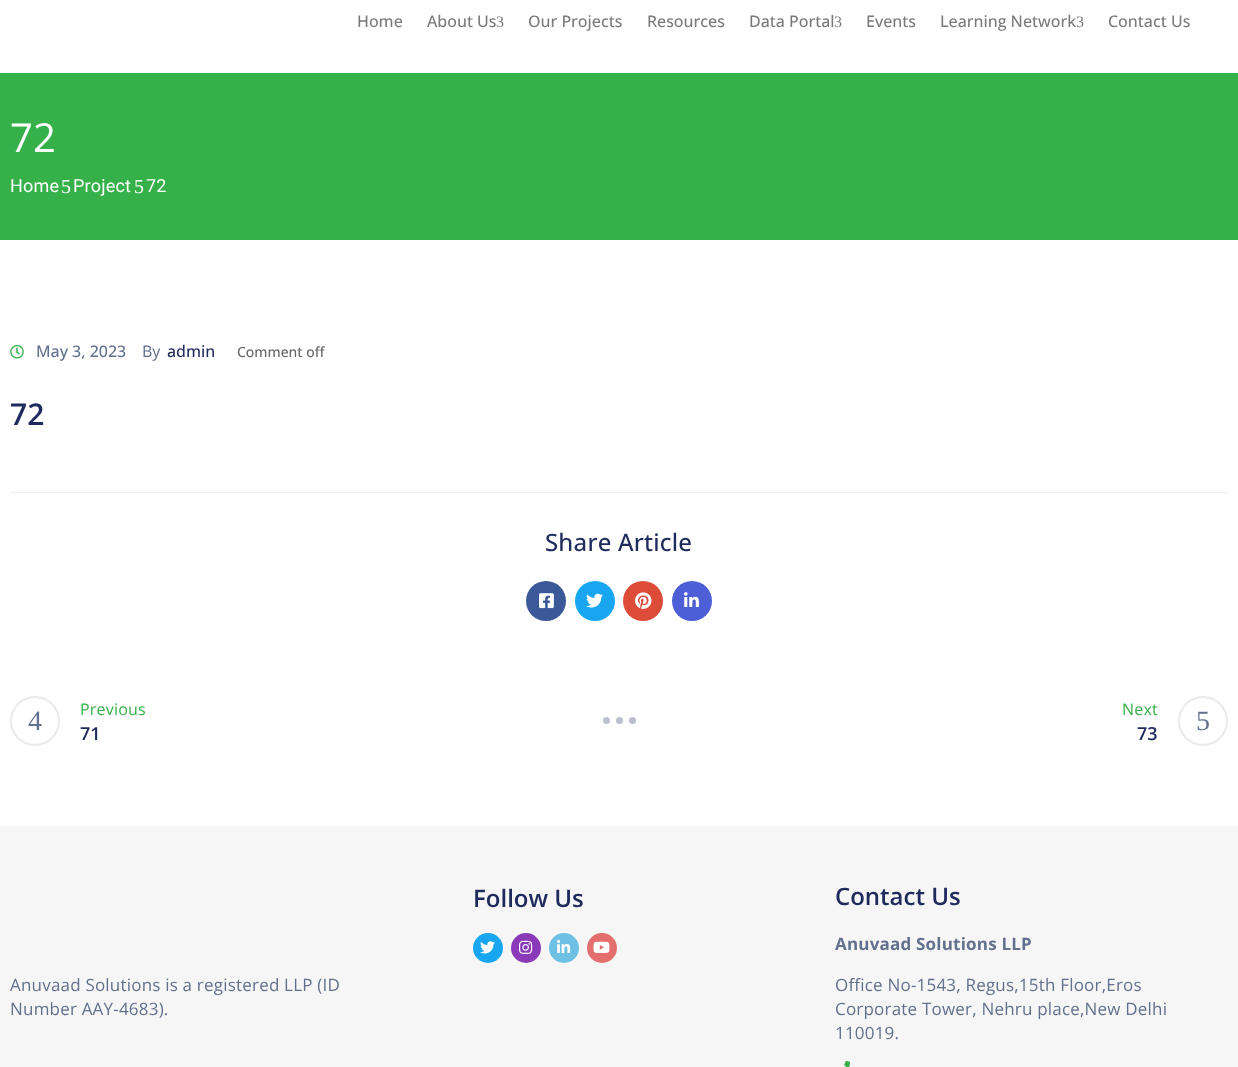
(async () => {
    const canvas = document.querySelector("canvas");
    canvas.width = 1238;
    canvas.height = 1067;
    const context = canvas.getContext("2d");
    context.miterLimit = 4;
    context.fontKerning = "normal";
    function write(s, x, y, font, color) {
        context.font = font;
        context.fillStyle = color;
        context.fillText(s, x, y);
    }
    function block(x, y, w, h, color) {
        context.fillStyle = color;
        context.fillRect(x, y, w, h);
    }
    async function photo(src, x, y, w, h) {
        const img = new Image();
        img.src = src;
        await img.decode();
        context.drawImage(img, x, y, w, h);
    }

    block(0, 0, 1238, 1067, "rgb(255, 255, 255)");
    write("Home", 357, 27, "500 16px Open Sans", "rgb(122, 122, 122)");
    write("About Us", 427, 27, "500 16px Open Sans", "rgb(122, 122, 122)");
    write("3", 496, 27, "16px Liberation Serif", "rgb(122, 122, 122)");
    write("Our Projects", 528, 27, "500 16px Open Sans", "rgb(122, 122, 122)");
    write("Resources", 647, 27, "500 16px Open Sans", "rgb(122, 122, 122)");
    write("Data Portal", 749, 27, "500 16px Open Sans", "rgb(122, 122, 122)");
    write("3", 834, 27, "16px Liberation Serif", "rgb(122, 122, 122)");
    write("Events", 866, 27, "500 16px Open Sans", "rgb(122, 122, 122)");
    write("Learning Network", 940, 27, "500 16px Open Sans", "rgb(122, 122, 122)");
    write("3", 1076, 27, "16px Liberation Serif", "rgb(122, 122, 122)");
    write("Contact Us", 1108, 27, "500 16px Open Sans", "rgb(122, 122, 122)");
    block(0, 73, 1238, 167, "rgb(54, 177, 74)");
    context.letterSpacing = "0.2px";
    write("72", 10, 152, "40px Open Sans", "rgb(255, 255, 255)");
    write("Home", 10, 192, "18px Roboto", "rgb(255, 255, 255)");
    write("5", 61, 193, "20px Liberation Serif", "rgb(255, 255, 255)");
    write("Project", 73, 192, "18px Roboto", "rgb(255, 255, 255)");
    write("5", 134, 193, "20px Liberation Serif", "rgb(255, 255, 255)");
    write("72", 146, 192, "18px Roboto", "rgb(255, 255, 255)");
    await photo("media/1.png", 10, 345, 14, 14);
    context.letterSpacing = "0px";
    write("May 3, 2023", 36, 357, "500 16px Open Sans", "rgb(98, 113, 141)");
    write("By", 142, 357, "16px Open Sans", "rgb(98, 113, 141)");
    write("admin", 167, 357, "500 16px Open Sans", "rgb(32, 43, 93)");
    write("Comment off", 237, 357, "500 14px Open Sans", "rgb(102, 102, 102)");
    write("72", 10, 425, "600 30px Open Sans", "rgb(32, 43, 93)");
    block(10, 492, 1218, 1, "rgb(238, 238, 238)");
    context.letterSpacing = "0.2px";
    write("Share Article", 545, 551, "500 24px Open Sans", "rgb(32, 43, 93)");
    context.fillStyle = "rgb(59, 89, 152)";
    context.beginPath();
    context.arc(546, 601, 20, 0, Math.PI * 2);
    context.fill();
    await photo("media/2.png", 539, 593, 15, 16);
    context.fillStyle = "rgb(24, 166, 240)";
    context.beginPath();
    context.arc(595, 601, 20, 0, Math.PI * 2);
    context.fill();
    await photo("media/3.png", 586, 593, 17, 15);
    context.fillStyle = "rgb(221, 75, 57)";
    context.beginPath();
    context.arc(643, 601, 20, 0, Math.PI * 2);
    context.fill();
    await photo("media/4.png", 635, 592, 17, 17);
    context.fillStyle = "rgb(76, 95, 215)";
    context.beginPath();
    context.arc(692, 601, 20, 0, Math.PI * 2);
    context.fill();
    await photo("media/5.png", 684, 592, 15, 15);
    context.beginPath();
    context.arc(35, 721, 24, 0, Math.PI * 2);
    context.strokeStyle = "rgb(234, 234, 234)";
    context.lineWidth = 2;
    context.stroke();
    context.letterSpacing = "0px";
    write("4", 28, 730, "28px Liberation Serif", "rgb(98, 113, 141)");
    context.letterSpacing = "0.2px";
    write("Previous", 80, 715, "16px Open Sans", "rgb(54, 177, 74)");
    context.letterSpacing = "0px";
    write("71", 80, 740, "600 18px Open Sans", "rgb(32, 43, 93)");
    context.fillStyle = "rgb(188, 191, 206)";
    context.beginPath();
    context.arc(606.5, 720.5, 3.5, 0, Math.PI * 2);
    context.fill();
    context.beginPath();
    context.arc(619.5, 720.5, 3.5, 0, Math.PI * 2);
    context.fill();
    context.beginPath();
    context.arc(632.5, 720.5, 3.5, 0, Math.PI * 2);
    context.fill();
    context.letterSpacing = "0.2px";
    write("Next", 1122, 715, "16px Open Sans", "rgb(54, 177, 74)");
    context.letterSpacing = "0px";
    write("73", 1137, 740, "600 18px Open Sans", "rgb(32, 43, 93)");
    context.beginPath();
    context.arc(1203, 721, 24, 0, Math.PI * 2);
    context.stroke();
    write("5", 1196, 730, "28px Liberation Serif", "rgb(98, 113, 141)");
    block(0, 826, 1238, 241, "rgb(246, 246, 246)");
    write("Follow Us", 473, 907, "600 24px Open Sans", "rgb(32, 43, 93)");
    context.fillStyle = "rgb(24, 166, 240)";
    context.beginPath();
    context.arc(488, 948, 15, 0, Math.PI * 2);
    context.fill();
    await photo("media/6.png", 480, 941, 15, 13);
    context.fillStyle = "rgb(138, 58, 185)";
    context.beginPath();
    context.arc(526, 948, 15, 0, Math.PI * 2);
    context.fill();
    await photo("media/7.png", 519, 940, 14, 14);
    context.fillStyle = "rgb(110, 193, 228)";
    context.beginPath();
    context.arc(564, 948, 15, 0, Math.PI * 2);
    context.fill();
    await photo("media/8.png", 557, 939, 14, 14);
    context.fillStyle = "rgb(228, 110, 110)";
    context.beginPath();
    context.arc(602, 948, 15, 0, Math.PI * 2);
    context.fill();
    await photo("media/9.png", 593, 941, 17, 12);
    write("Contact Us", 835, 905, "600 24px Open Sans", "rgb(32, 43, 93)");
    context.letterSpacing = "0.2px";
    write("Anuvaad Solutions LLP", 835, 950, "bold 17px Open Sans", "rgb(98, 113, 141)");
    write("Office No-1543, Regus,15th Floor,Eros", 835, 991, "17px Open Sans", "rgb(98, 113, 141)");
    write("Corporate Tower, Nehru place,New Delhi", 835, 1015, "17px Open Sans", "rgb(98, 113, 141)");
    write("110019.", 835, 1039, "17px Open Sans", "rgb(98, 113, 141)");
    await photo("media/10.png", 844, 1060, 6, 7);
    write("Anuvaad Solutions is a registered LLP (ID", 10, 991, "17px Open Sans", "rgb(98, 113, 141)");
    write("Number AAY-4683).", 10, 1015, "17px Open Sans", "rgb(98, 113, 141)");
})();
